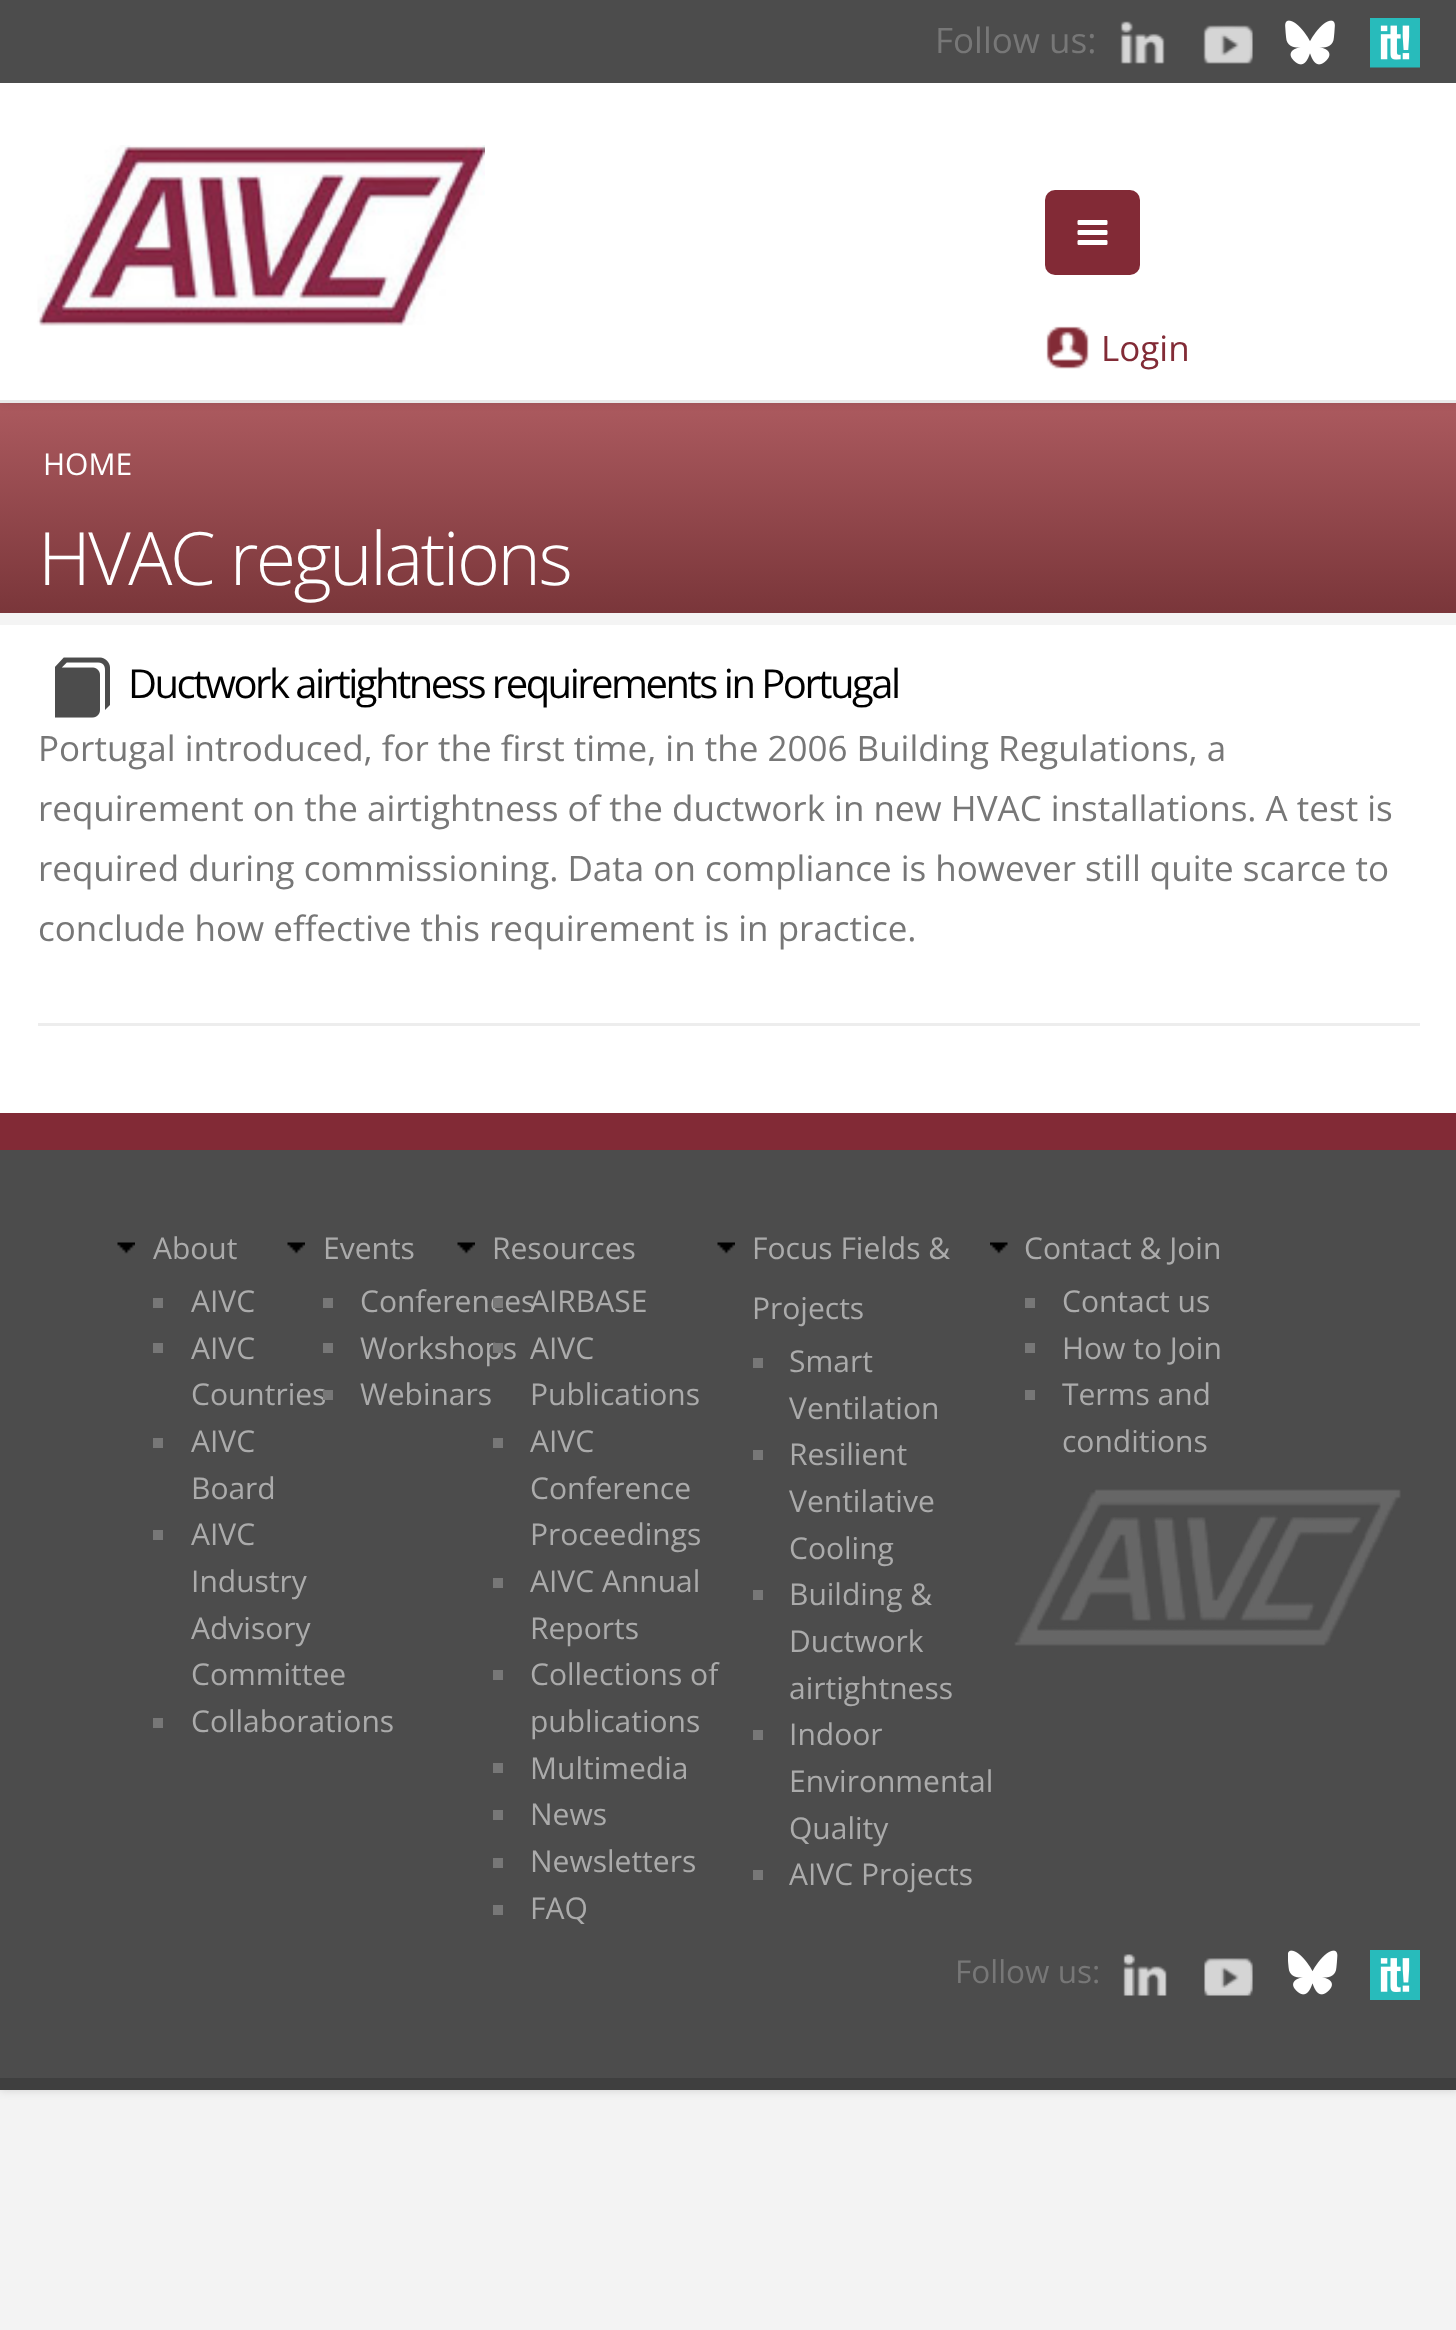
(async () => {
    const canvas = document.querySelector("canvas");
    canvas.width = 1456;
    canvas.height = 2330;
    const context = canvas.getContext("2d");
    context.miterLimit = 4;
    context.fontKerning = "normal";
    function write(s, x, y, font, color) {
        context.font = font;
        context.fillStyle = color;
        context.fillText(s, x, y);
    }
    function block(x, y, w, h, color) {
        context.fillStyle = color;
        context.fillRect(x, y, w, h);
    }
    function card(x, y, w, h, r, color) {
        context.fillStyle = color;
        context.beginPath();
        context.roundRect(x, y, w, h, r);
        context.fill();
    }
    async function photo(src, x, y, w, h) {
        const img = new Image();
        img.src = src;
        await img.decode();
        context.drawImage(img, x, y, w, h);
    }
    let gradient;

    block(0, 0, 1456, 2330, "rgb(243, 243, 243)");
    context.fillStyle = "rgba(0, 0, 0, 0.15)";
    context.filter = "blur(5px)";
    context.beginPath();
    context.rect(0, 0, 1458, 2090);
    context.fill();
    context.filter = "none";
    block(0, 625, 1456, 488, "rgb(255, 255, 255)");
    block(0, 2078, 1456, 12, "rgb(63, 63, 63)");
    gradient = context.createLinearGradient(729, 402, 729, 613);
    gradient.addColorStop(0, "rgb(172, 90, 95)");
    gradient.addColorStop(1, "rgb(122, 54, 58)");
    context.fillStyle = gradient;
    context.fillRect(0, 403, 1456, 210);
    context.fillStyle = "rgba(0, 0, 0, 0.1)";
    context.filter = "blur(4px)";
    context.beginPath();
    context.rect(0, 0, 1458, 403);
    context.fill();
    context.filter = "none";
    block(0, 83, 1456, 317, "rgb(255, 255, 255)");
    block(0, 400, 1456, 3, "rgb(233, 233, 233)");
    block(0, 0, 1456, 83, "rgb(76, 76, 76)");
    write("Follow us:", 935, 53, "35px Open Sans", "rgb(119, 119, 119)");
    await photo("media/1.png", 1120, 21, 45, 43);
    await photo("media/2.png", 1203, 25, 50, 39);
    await photo("media/3.png", 1285, 20, 50, 45);
    await photo("media/4.png", 1370, 18, 50, 50);
    await photo("media/5.png", 37, 145, 448, 181);
    card(1045, 190, 95, 85, 10, "rgb(130, 42, 54)");
    await photo("media/6.png", 1077, 220, 31, 25);
    await photo("media/7.png", 1046, 326, 43, 43);
    write("Login", 1101, 361, "35px Open Sans", "rgb(130, 43, 54)");
    block(0, 613, 1456, 12, "rgb(244, 244, 244)");
    write("HOME", 43, 475, "30px Open Sans", "rgb(255, 255, 255)");
    context.letterSpacing = "-2.5px";
    write("HVAC regulations", 38, 585, "300 73.5px Open Sans", "rgb(255, 255, 255)");
    block(38, 1023, 1382, 3, "rgb(237, 237, 237)");
    await photo("media/8.png", 55, 657, 55, 61);
    write("Ductwork airtightness requirements in Portugal", 128, 698, "40px Open Sans", "rgb(0, 0, 0)");
    context.letterSpacing = "0px";
    write("Portugal introduced, for the first time, in the 2006 Building Regulations, a", 38, 761, "35px Open Sans", "rgb(119, 119, 119)");
    write("requirement on the airtightness of the ductwork in new HVAC installations. A test is", 38, 821, "35px Open Sans", "rgb(119, 119, 119)");
    write("required during commissioning. Data on compliance is however still quite scarce to", 38, 881, "35px Open Sans", "rgb(119, 119, 119)");
    write("conclude how effective this requirement is in practice.", 38, 941, "35px Open Sans", "rgb(119, 119, 119)");
    block(0, 1150, 1456, 928, "rgb(76, 76, 76)");
    block(0, 1113, 1456, 37, "rgb(130, 42, 54)");
    await photo("media/9.png", 117, 1242, 18, 12);
    write("About", 153, 1259, "30px Open Sans", "rgb(171, 171, 171)");
    block(153, 1298, 10, 10, "rgb(119, 119, 119)");
    write("AIVC", 191, 1312, "30px Open Sans", "rgb(171, 171, 171)");
    block(153, 1343, 10, 10, "rgb(119, 119, 119)");
    write("AIVC", 191, 1359, "30px Open Sans", "rgb(171, 171, 171)");
    write("Countries", 191, 1405, "30px Open Sans", "rgb(171, 171, 171)");
    block(153, 1438, 10, 10, "rgb(119, 119, 119)");
    write("AIVC", 191, 1452, "30px Open Sans", "rgb(171, 171, 171)");
    write("Board", 191, 1499, "30px Open Sans", "rgb(171, 171, 171)");
    block(153, 1530, 10, 10, "rgb(119, 119, 119)");
    write("AIVC", 191, 1545, "30px Open Sans", "rgb(171, 171, 171)");
    write("Industry", 191, 1592, "30px Open Sans", "rgb(171, 171, 171)");
    write("Advisory", 191, 1639, "30px Open Sans", "rgb(171, 171, 171)");
    write("Committee", 191, 1685, "30px Open Sans", "rgb(171, 171, 171)");
    block(153, 1718, 10, 10, "rgb(119, 119, 119)");
    write("Collaborations", 191, 1732, "30px Open Sans", "rgb(171, 171, 171)");
    await photo("media/10.png", 287, 1242, 18, 12);
    write("Events", 323, 1259, "30px Open Sans", "rgb(171, 171, 171)");
    block(323, 1298, 10, 10, "rgb(119, 119, 119)");
    write("Conferences", 360, 1312, "30px Open Sans", "rgb(171, 171, 171)");
    block(323, 1343, 10, 10, "rgb(119, 119, 119)");
    write("Workshops", 360, 1359, "30px Open Sans", "rgb(171, 171, 171)");
    block(323, 1390, 10, 10, "rgb(119, 119, 119)");
    write("Webinars", 360, 1405, "30px Open Sans", "rgb(171, 171, 171)");
    await photo("media/9.png", 457, 1242, 18, 12);
    write("Resources", 492, 1259, "30px Open Sans", "rgb(171, 171, 171)");
    block(493, 1298, 10, 10, "rgb(119, 119, 119)");
    write("AIRBASE", 530, 1312, "30px Open Sans", "rgb(171, 171, 171)");
    block(493, 1343, 10, 10, "rgb(119, 119, 119)");
    write("AIVC", 530, 1359, "30px Open Sans", "rgb(171, 171, 171)");
    write("Publications", 530, 1405, "30px Open Sans", "rgb(171, 171, 171)");
    block(493, 1438, 10, 10, "rgb(119, 119, 119)");
    write("AIVC", 530, 1452, "30px Open Sans", "rgb(171, 171, 171)");
    write("Conference", 530, 1499, "30px Open Sans", "rgb(171, 171, 171)");
    write("Proceedings", 530, 1545, "30px Open Sans", "rgb(171, 171, 171)");
    block(493, 1578, 10, 10, "rgb(119, 119, 119)");
    write("AIVC Annual", 530, 1592, "30px Open Sans", "rgb(171, 171, 171)");
    write("Reports", 530, 1639, "30px Open Sans", "rgb(171, 171, 171)");
    block(493, 1670, 10, 10, "rgb(119, 119, 119)");
    write("Collections of", 530, 1685, "30px Open Sans", "rgb(171, 171, 171)");
    write("publications", 530, 1732, "30px Open Sans", "rgb(171, 171, 171)");
    block(493, 1763, 10, 10, "rgb(119, 119, 119)");
    write("Multimedia", 530, 1779, "30px Open Sans", "rgb(171, 171, 171)");
    block(493, 1810, 10, 10, "rgb(119, 119, 119)");
    write("News", 530, 1825, "30px Open Sans", "rgb(171, 171, 171)");
    block(493, 1858, 10, 10, "rgb(119, 119, 119)");
    write("Newsletters", 530, 1872, "30px Open Sans", "rgb(171, 171, 171)");
    block(493, 1905, 10, 10, "rgb(119, 119, 119)");
    write("FAQ", 530, 1919, "30px Open Sans", "rgb(171, 171, 171)");
    await photo("media/9.png", 717, 1242, 18, 12);
    write("Focus Fields &", 752, 1259, "30px Open Sans", "rgb(171, 171, 171)");
    write("Projects", 752, 1319, "30px Open Sans", "rgb(171, 171, 171)");
    block(753, 1358, 10, 10, "rgb(119, 119, 119)");
    write("Smart", 789, 1372, "30px Open Sans", "rgb(171, 171, 171)");
    write("Ventilation", 789, 1419, "30px Open Sans", "rgb(171, 171, 171)");
    block(753, 1450, 10, 10, "rgb(119, 119, 119)");
    write("Resilient", 789, 1465, "30px Open Sans", "rgb(171, 171, 171)");
    write("Ventilative", 789, 1512, "30px Open Sans", "rgb(171, 171, 171)");
    write("Cooling", 789, 1559, "30px Open Sans", "rgb(171, 171, 171)");
    block(753, 1590, 10, 10, "rgb(119, 119, 119)");
    write("Building &", 789, 1605, "30px Open Sans", "rgb(171, 171, 171)");
    write("Ductwork", 789, 1652, "30px Open Sans", "rgb(171, 171, 171)");
    write("airtightness", 789, 1699, "30px Open Sans", "rgb(171, 171, 171)");
    block(753, 1730, 10, 10, "rgb(119, 119, 119)");
    write("Indoor", 789, 1745, "30px Open Sans", "rgb(171, 171, 171)");
    write("Environmental", 789, 1792, "30px Open Sans", "rgb(171, 171, 171)");
    write("Quality", 789, 1839, "30px Open Sans", "rgb(171, 171, 171)");
    block(753, 1870, 10, 10, "rgb(119, 119, 119)");
    write("AIVC Projects", 789, 1885, "30px Open Sans", "rgb(171, 171, 171)");
    await photo("media/11.png", 990, 1242, 18, 12);
    write("Contact & Join", 1024, 1259, "30px Open Sans", "rgb(171, 171, 171)");
    block(1025, 1298, 10, 10, "rgb(119, 119, 119)");
    write("Contact us", 1062, 1312, "30px Open Sans", "rgb(171, 171, 171)");
    block(1025, 1343, 10, 10, "rgb(119, 119, 119)");
    write("How to Join", 1062, 1359, "30px Open Sans", "rgb(171, 171, 171)");
    block(1025, 1390, 10, 10, "rgb(119, 119, 119)");
    write("Terms and", 1062, 1405, "30px Open Sans", "rgb(171, 171, 171)");
    write("conditions", 1062, 1452, "30px Open Sans", "rgb(171, 171, 171)");
    await photo("media/12.png", 1014, 1489, 387, 157);
    write("Follow us:", 955, 1983, "31.5px Open Sans", "rgb(119, 119, 119)");
    await photo("media/13.png", 1123, 1954, 44, 42);
    await photo("media/14.png", 1204, 1958, 49, 38);
    await photo("media/15.png", 1288, 1950, 50, 45);
    await photo("media/16.png", 1370, 1950, 50, 50);
})();
